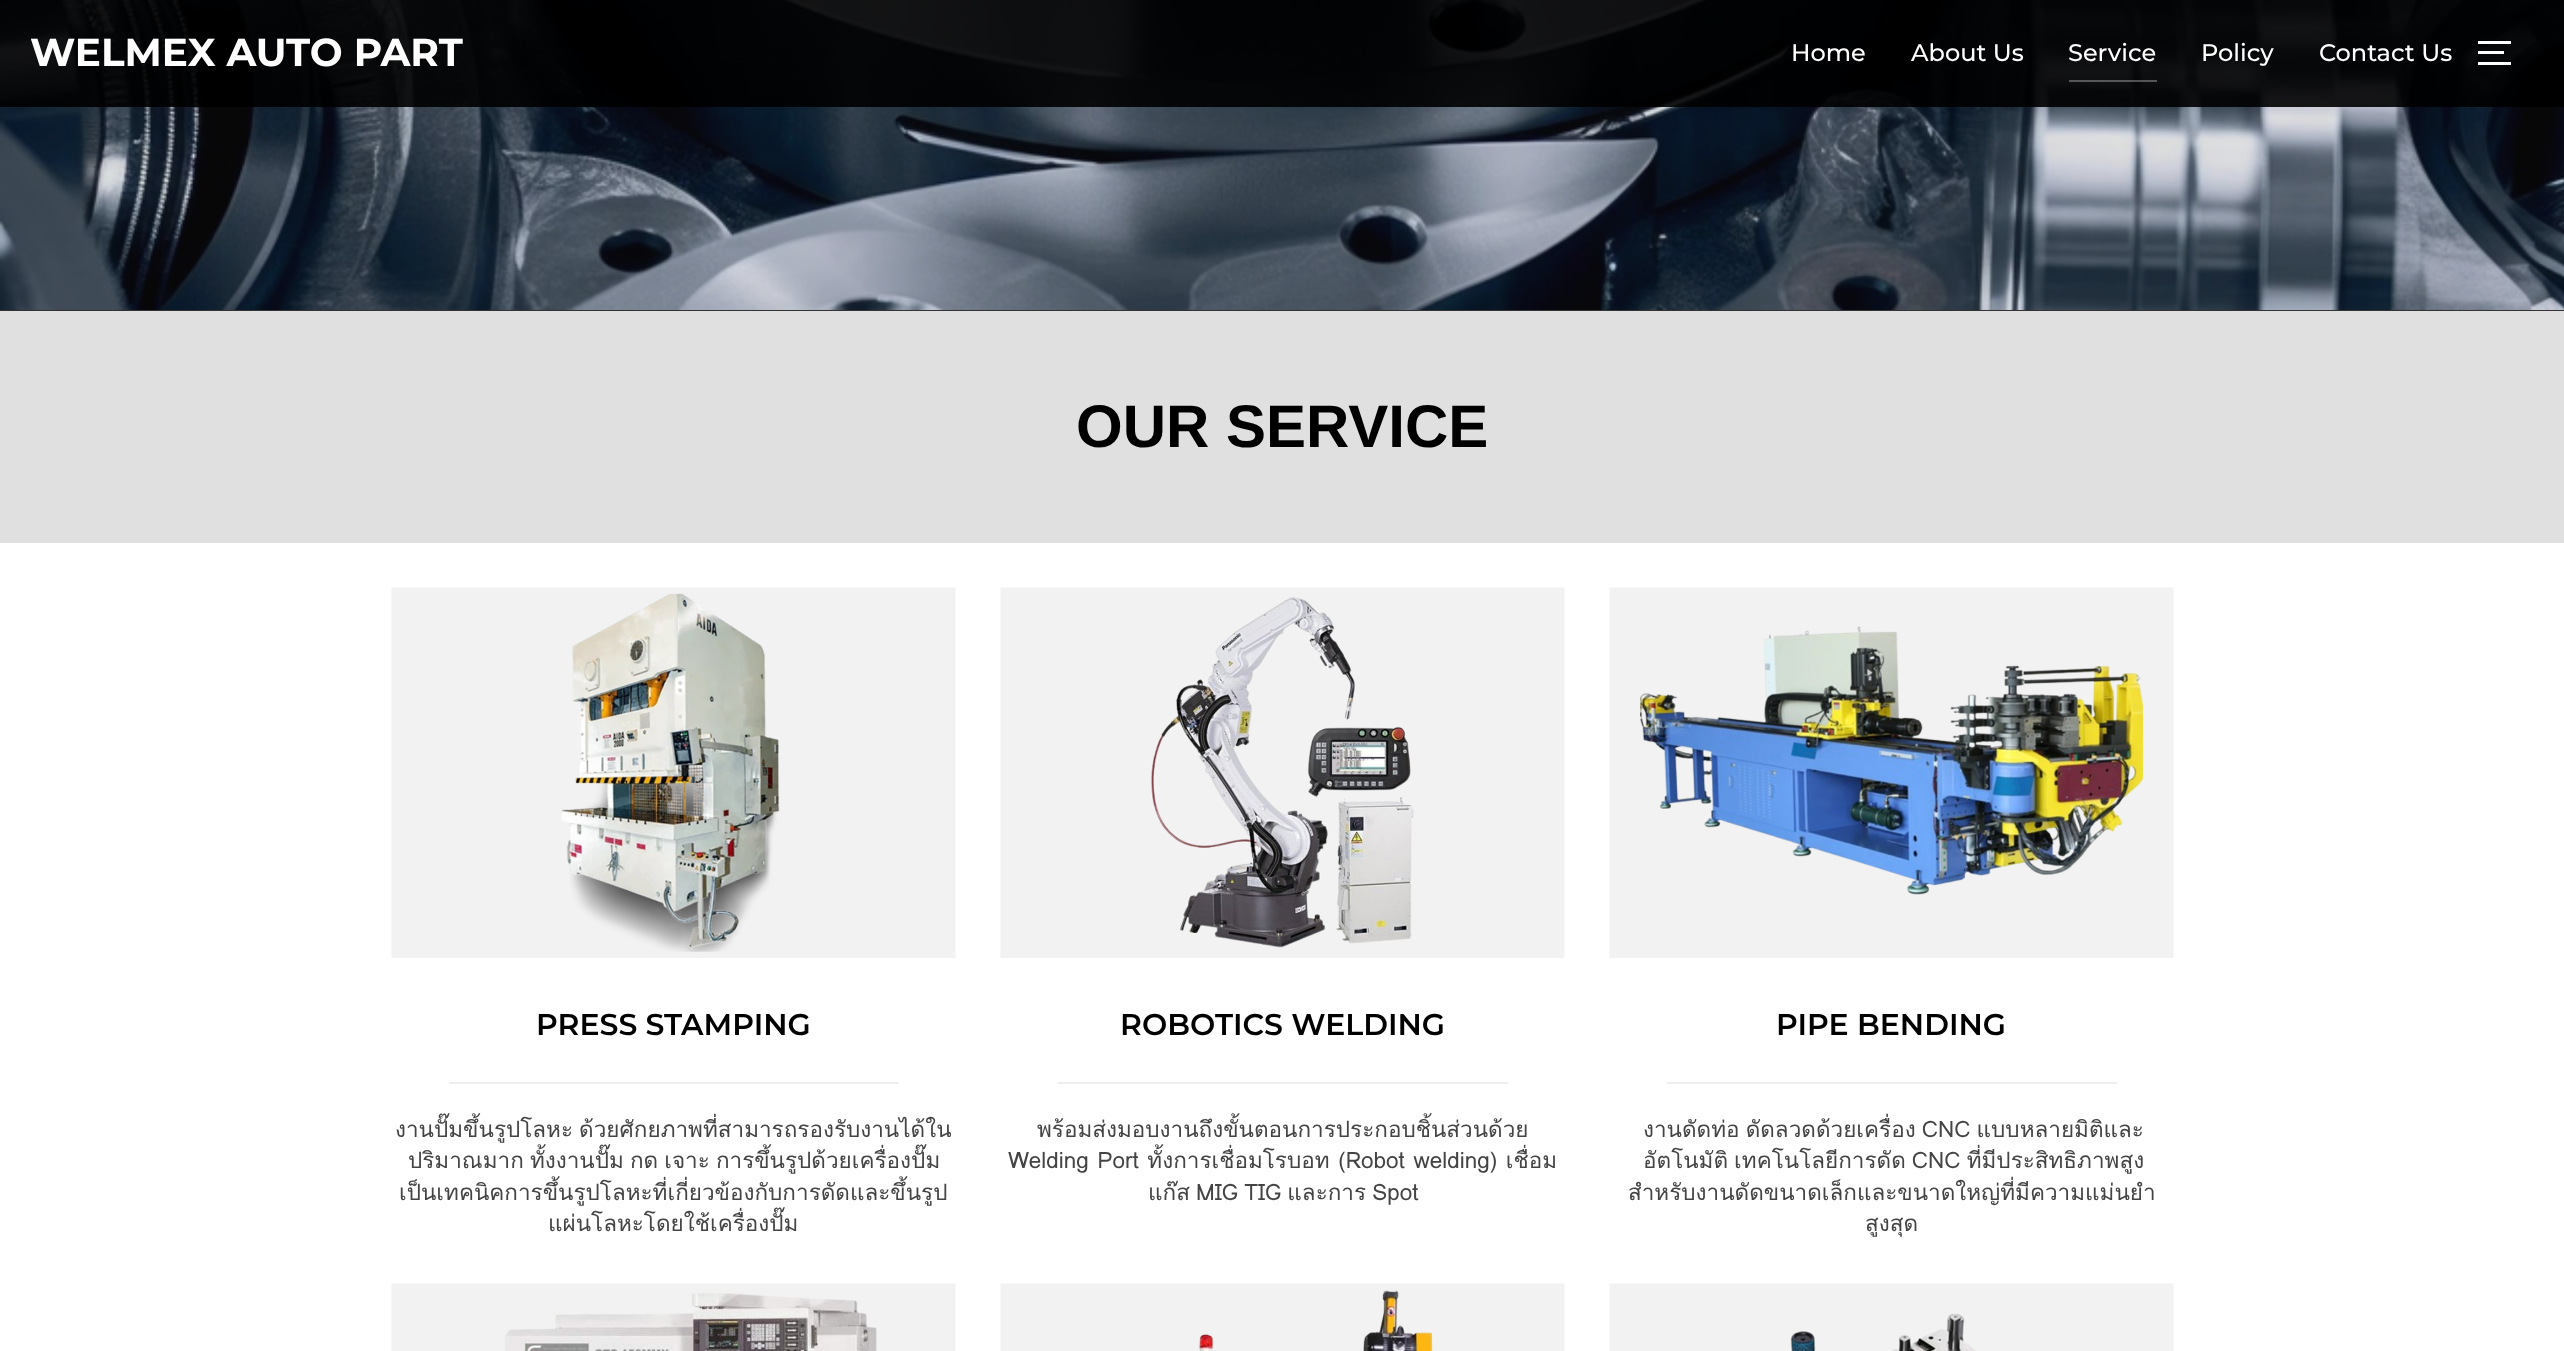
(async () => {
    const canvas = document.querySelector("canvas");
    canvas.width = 2564;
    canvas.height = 1351;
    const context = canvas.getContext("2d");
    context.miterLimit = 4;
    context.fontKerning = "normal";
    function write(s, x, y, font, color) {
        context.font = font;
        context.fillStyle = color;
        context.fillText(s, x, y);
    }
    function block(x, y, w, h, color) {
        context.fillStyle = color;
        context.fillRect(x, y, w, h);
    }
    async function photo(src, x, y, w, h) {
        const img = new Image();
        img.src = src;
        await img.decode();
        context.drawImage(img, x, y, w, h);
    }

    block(0, 0, 2564, 1351, "rgb(255, 255, 255)");
    block(0, 0, 2564, 311, "rgb(51, 51, 51)");
    await photo("media/1.png", 0, 0, 2564, 310);
    block(0, 0, 2564, 107, "rgba(0, 0, 0, 0.9)");
    write("WELMEX AUTO PART", 30, 66, "bold 39px Montserrat", "rgb(255, 255, 255)");
    write("Home", 1791, 61, "500 24px Montserrat", "rgb(255, 255, 255)");
    write("About Us", 1911, 61, "500 24px Montserrat", "rgb(255, 255, 255)");
    block(2069, 80, 88, 2, "rgba(255, 255, 255, 0.3)");
    write("Service", 2068, 61, "500 24px Montserrat", "rgb(255, 255, 255)");
    write("Policy", 2201, 61, "500 24px Montserrat", "rgb(255, 255, 255)");
    write("Contact Us", 2319, 61, "500 24px Montserrat", "rgb(255, 255, 255)");
    block(2478, 41, 33, 3, "rgb(255, 255, 255)");
    block(2478, 51, 26, 3, "rgb(255, 255, 255)");
    block(2478, 62, 33, 3, "rgb(255, 255, 255)");
    block(0, 311, 2564, 232, "rgb(224, 224, 224)");
    write("OUR SERVICE", 1076, 447, "bold 60px Liberation Sans", "rgb(0, 0, 0)");
    await photo("media/2.png", 391, 587, 565, 371);
    write("PRESS STAMPING", 536, 1035, "600 30px Montserrat", "rgb(0, 0, 0)");
    block(449, 1082, 450, 2, "rgb(238, 238, 238)");
    context.wordSpacing = "-1.5px";
    write("งานปั๊มขึ้นรูปโลหะ ด้วยศักยภาพที่สามารถรองรับงานได้ใน", 395, 1137, "22.5px Loma", "rgb(68, 68, 68)");
    write("ปริมาณมาก ทั้งงานปั๊ม กด เจาะ การขึ้นรูปด้วยเครื่องปั๊ม", 408, 1168, "22.5px Loma", "rgb(68, 68, 68)");
    context.wordSpacing = "0px";
    write("เป็นเทคนิคการขึ้นรูปโลหะที่เกี่ยวข้องกับการดัดและขึ้นรูป", 399, 1200, "22.5px Loma", "rgb(68, 68, 68)");
    write("แผ่นโลหะโดยใช้เครื่องปั๊ม", 548, 1231, "22.5px Loma", "rgb(68, 68, 68)");
    await photo("media/3.png", 1000, 587, 565, 371);
    write("ROBOTICS WELDING", 1120, 1035, "600 30px Montserrat", "rgb(0, 0, 0)");
    block(1058, 1082, 450, 2, "rgb(238, 238, 238)");
    write("พร้อมส่งมอบงานถึงขั้นตอนการประกอบชิ้นส่วนด้วย", 1037, 1137, "22.5px Loma", "rgb(68, 68, 68)");
    context.wordSpacing = "1px";
    write("Welding Port ทั้งการเชื่อมโรบอท (Robot welding) เชื่อม", 1008, 1168, "22.5px Loma", "rgb(68, 68, 68)");
    context.wordSpacing = "-1.5px";
    write("แก๊ส MIG TIG และการ Spot", 1148, 1200, "22.5px Loma", "rgb(68, 68, 68)");
    await photo("media/4.png", 1609, 587, 565, 371);
    context.wordSpacing = "0px";
    write("PIPE BENDING", 1776, 1035, "600 30px Montserrat", "rgb(0, 0, 0)");
    block(1667, 1082, 450, 2, "rgb(238, 238, 238)");
    context.wordSpacing = "-1.5px";
    write("งานดัดท่อ ดัดลวดด้วยเครื่อง CNC แบบหลายมิติและ", 1643, 1137, "22.5px Loma", "rgb(68, 68, 68)");
    write("อัตโนมัติ เทคโนโลยีการดัด CNC ที่มีประสิทธิภาพสูง", 1643, 1168, "22.5px Loma", "rgb(68, 68, 68)");
    context.wordSpacing = "0px";
    write("สำหรับงานดัดขนาดเล็กและขนาดใหญ่ที่มีความแม่นยำ", 1628, 1200, "22.5px Loma", "rgb(68, 68, 68)");
    write("สูงสุด", 1865, 1231, "22.5px Loma", "rgb(68, 68, 68)");
    await photo("media/5.png", 391, 1283, 565, 68);
    await photo("media/6.png", 1000, 1283, 565, 68);
    await photo("media/7.png", 1609, 1283, 565, 68);
})();
